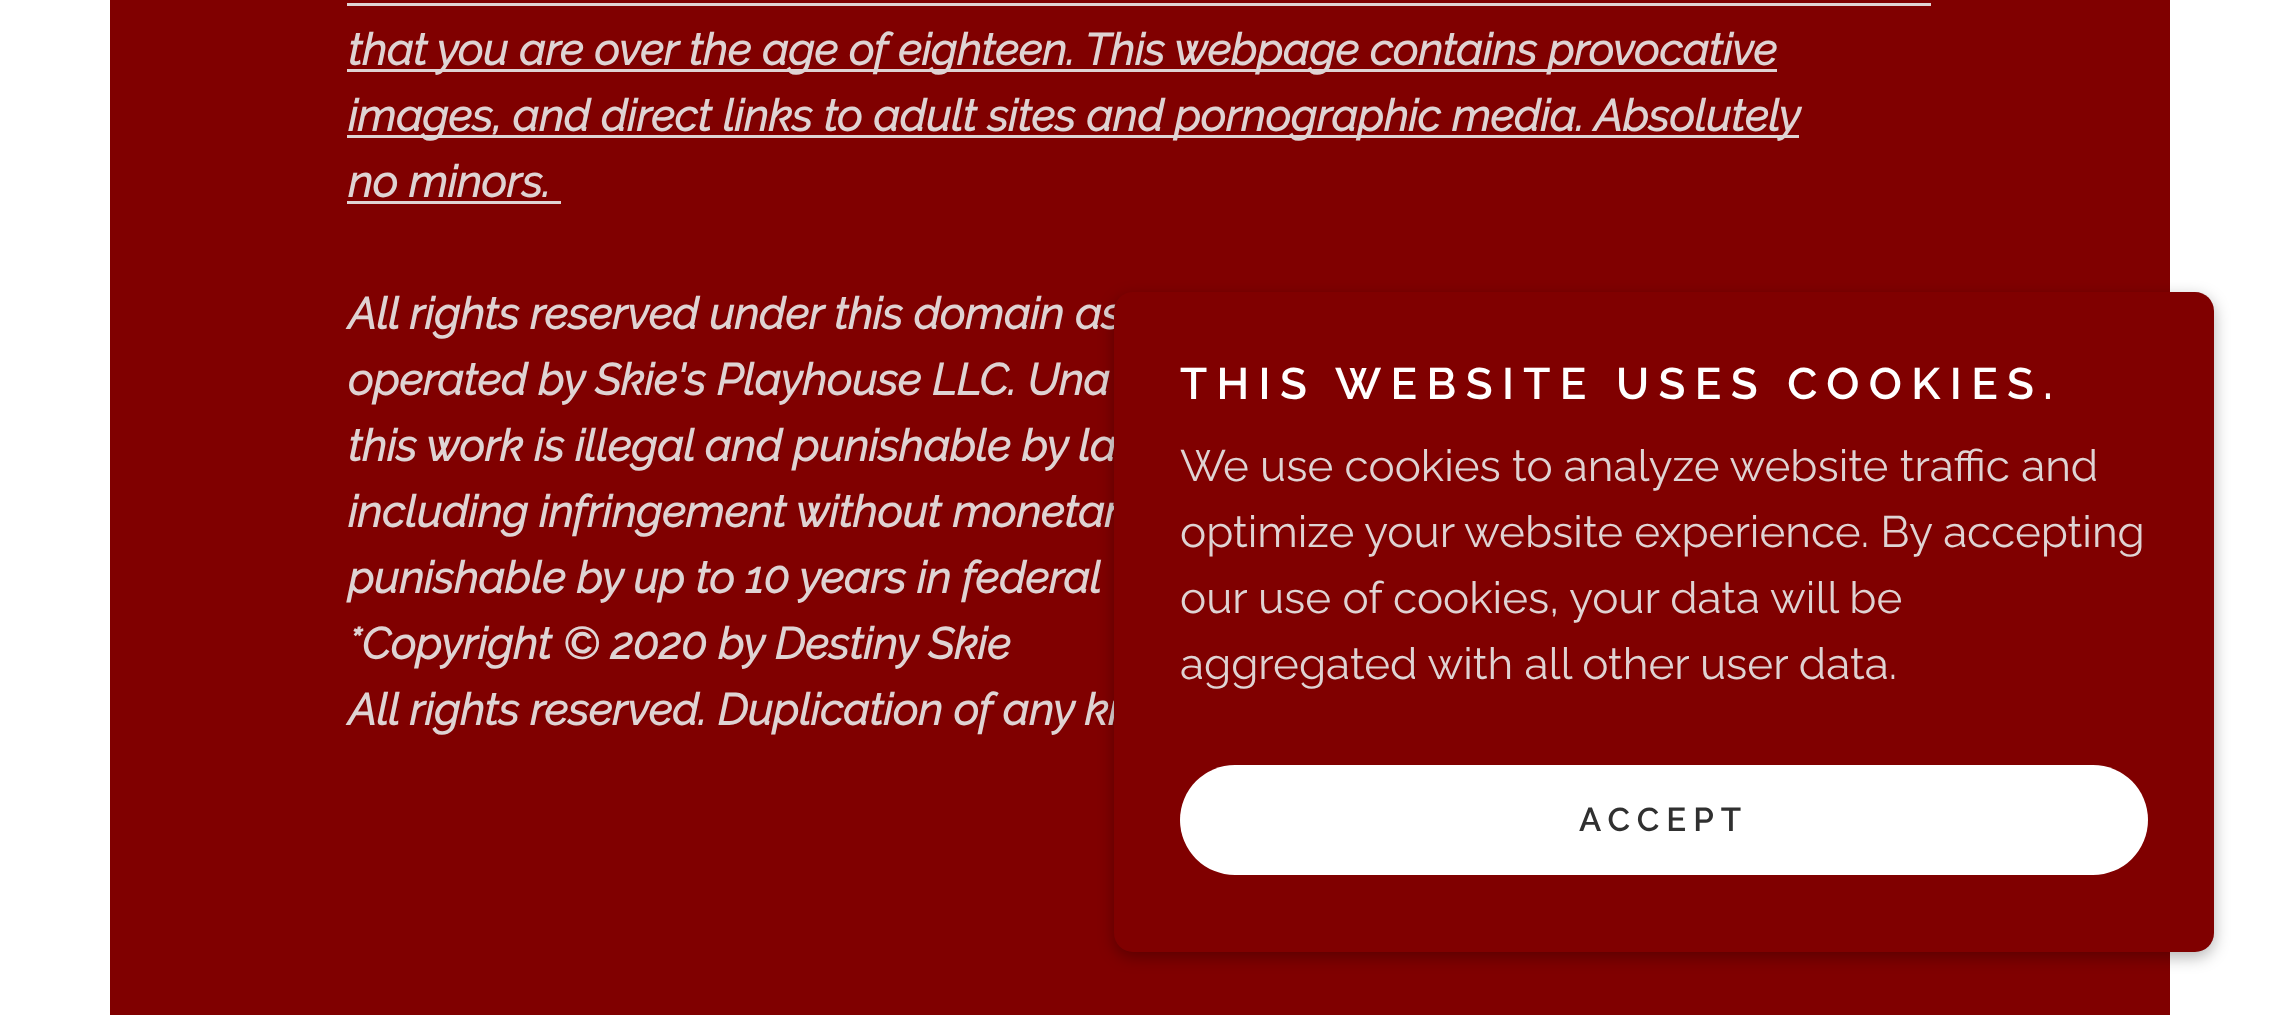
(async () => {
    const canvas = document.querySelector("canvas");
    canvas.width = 2278;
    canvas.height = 1015;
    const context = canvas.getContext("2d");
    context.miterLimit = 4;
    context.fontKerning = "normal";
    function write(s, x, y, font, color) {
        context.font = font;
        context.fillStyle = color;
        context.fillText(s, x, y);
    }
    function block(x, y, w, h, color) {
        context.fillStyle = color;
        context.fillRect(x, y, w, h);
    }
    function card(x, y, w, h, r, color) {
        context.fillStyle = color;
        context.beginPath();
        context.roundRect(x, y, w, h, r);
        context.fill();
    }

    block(0, 0, 2278, 1015, "rgb(255, 255, 255)");
    block(110, 0, 2060, 1015, "rgb(128, 0, 0)");
    block(347, 69, 1430, 3, "rgb(223, 211, 211)");
    write("that you are over the age of eighteen. This webpage contains provocative", 348, 65, "italic bold 44px Raleway", "rgb(223, 211, 211)");
    block(347, 3, 1584, 3, "rgb(223, 211, 211)");
    block(347, 135, 1452, 3, "rgb(223, 211, 211)");
    write("images, and direct links to adult sites and pornographic media. Absolutely", 348, 131, "italic bold 44px Raleway", "rgb(223, 211, 211)");
    write("no minors.", 348, 197, "italic bold 44px Raleway", "rgb(223, 211, 211)");
    block(347, 201, 214, 3, "rgb(223, 211, 211)");
    write("All rights reserved under this domain as", 348, 329, "italic bold 44px Raleway", "rgb(223, 211, 211)");
    write("operated by Skie's Playhouse LLC. Una", 348, 395, "italic bold 44px Raleway", "rgb(223, 211, 211)");
    write("this work is illegal and punishable by la", 348, 461, "italic bold 44px Raleway", "rgb(223, 211, 211)");
    write("including infringement without monetar", 348, 527, "italic bold 44px Raleway", "rgb(223, 211, 211)");
    write("punishable by up to 10 years in federal", 348, 593, "italic bold 44px Raleway", "rgb(223, 211, 211)");
    write("*Copyright © 2020 by Destiny Skie", 348, 659, "italic bold 44px Raleway", "rgb(223, 211, 211)");
    write("All rights reserved. Duplication of any ki", 348, 725, "italic bold 44px Raleway", "rgb(223, 211, 211)");
    context.fillStyle = "rgba(0, 0, 0, 0.3)";
    context.filter = "blur(8px)";
    context.beginPath();
    context.roundRect(1114, 297, 1100, 660, 19);
    context.fill();
    context.filter = "none";
    card(1114, 292, 1100, 660, 19, "rgb(128, 0, 0)");
    context.letterSpacing = "9.4px";
    write("THIS WEBSITE USES COOKIES.", 1180, 399, "600 44px Raleway", "rgb(255, 255, 255)");
    context.letterSpacing = "0px";
    write("We use cookies to analyze website traffic and", 1180, 481, "44px Raleway", "rgb(223, 211, 211)");
    write("optimize your website experience. By accepting", 1180, 547, "44px Raleway", "rgb(223, 211, 211)");
    write("our use of cookies, your data will be", 1180, 613, "44px Raleway", "rgb(223, 211, 211)");
    write("aggregated with all other user data.", 1180, 679, "44px Raleway", "rgb(223, 211, 211)");
    card(1180, 765, 968, 110, 55, "rgb(255, 255, 255)");
    context.letterSpacing = "7px";
    write("ACCEPT", 1579, 831, "600 33px Raleway", "rgb(48, 48, 48)");
})();
